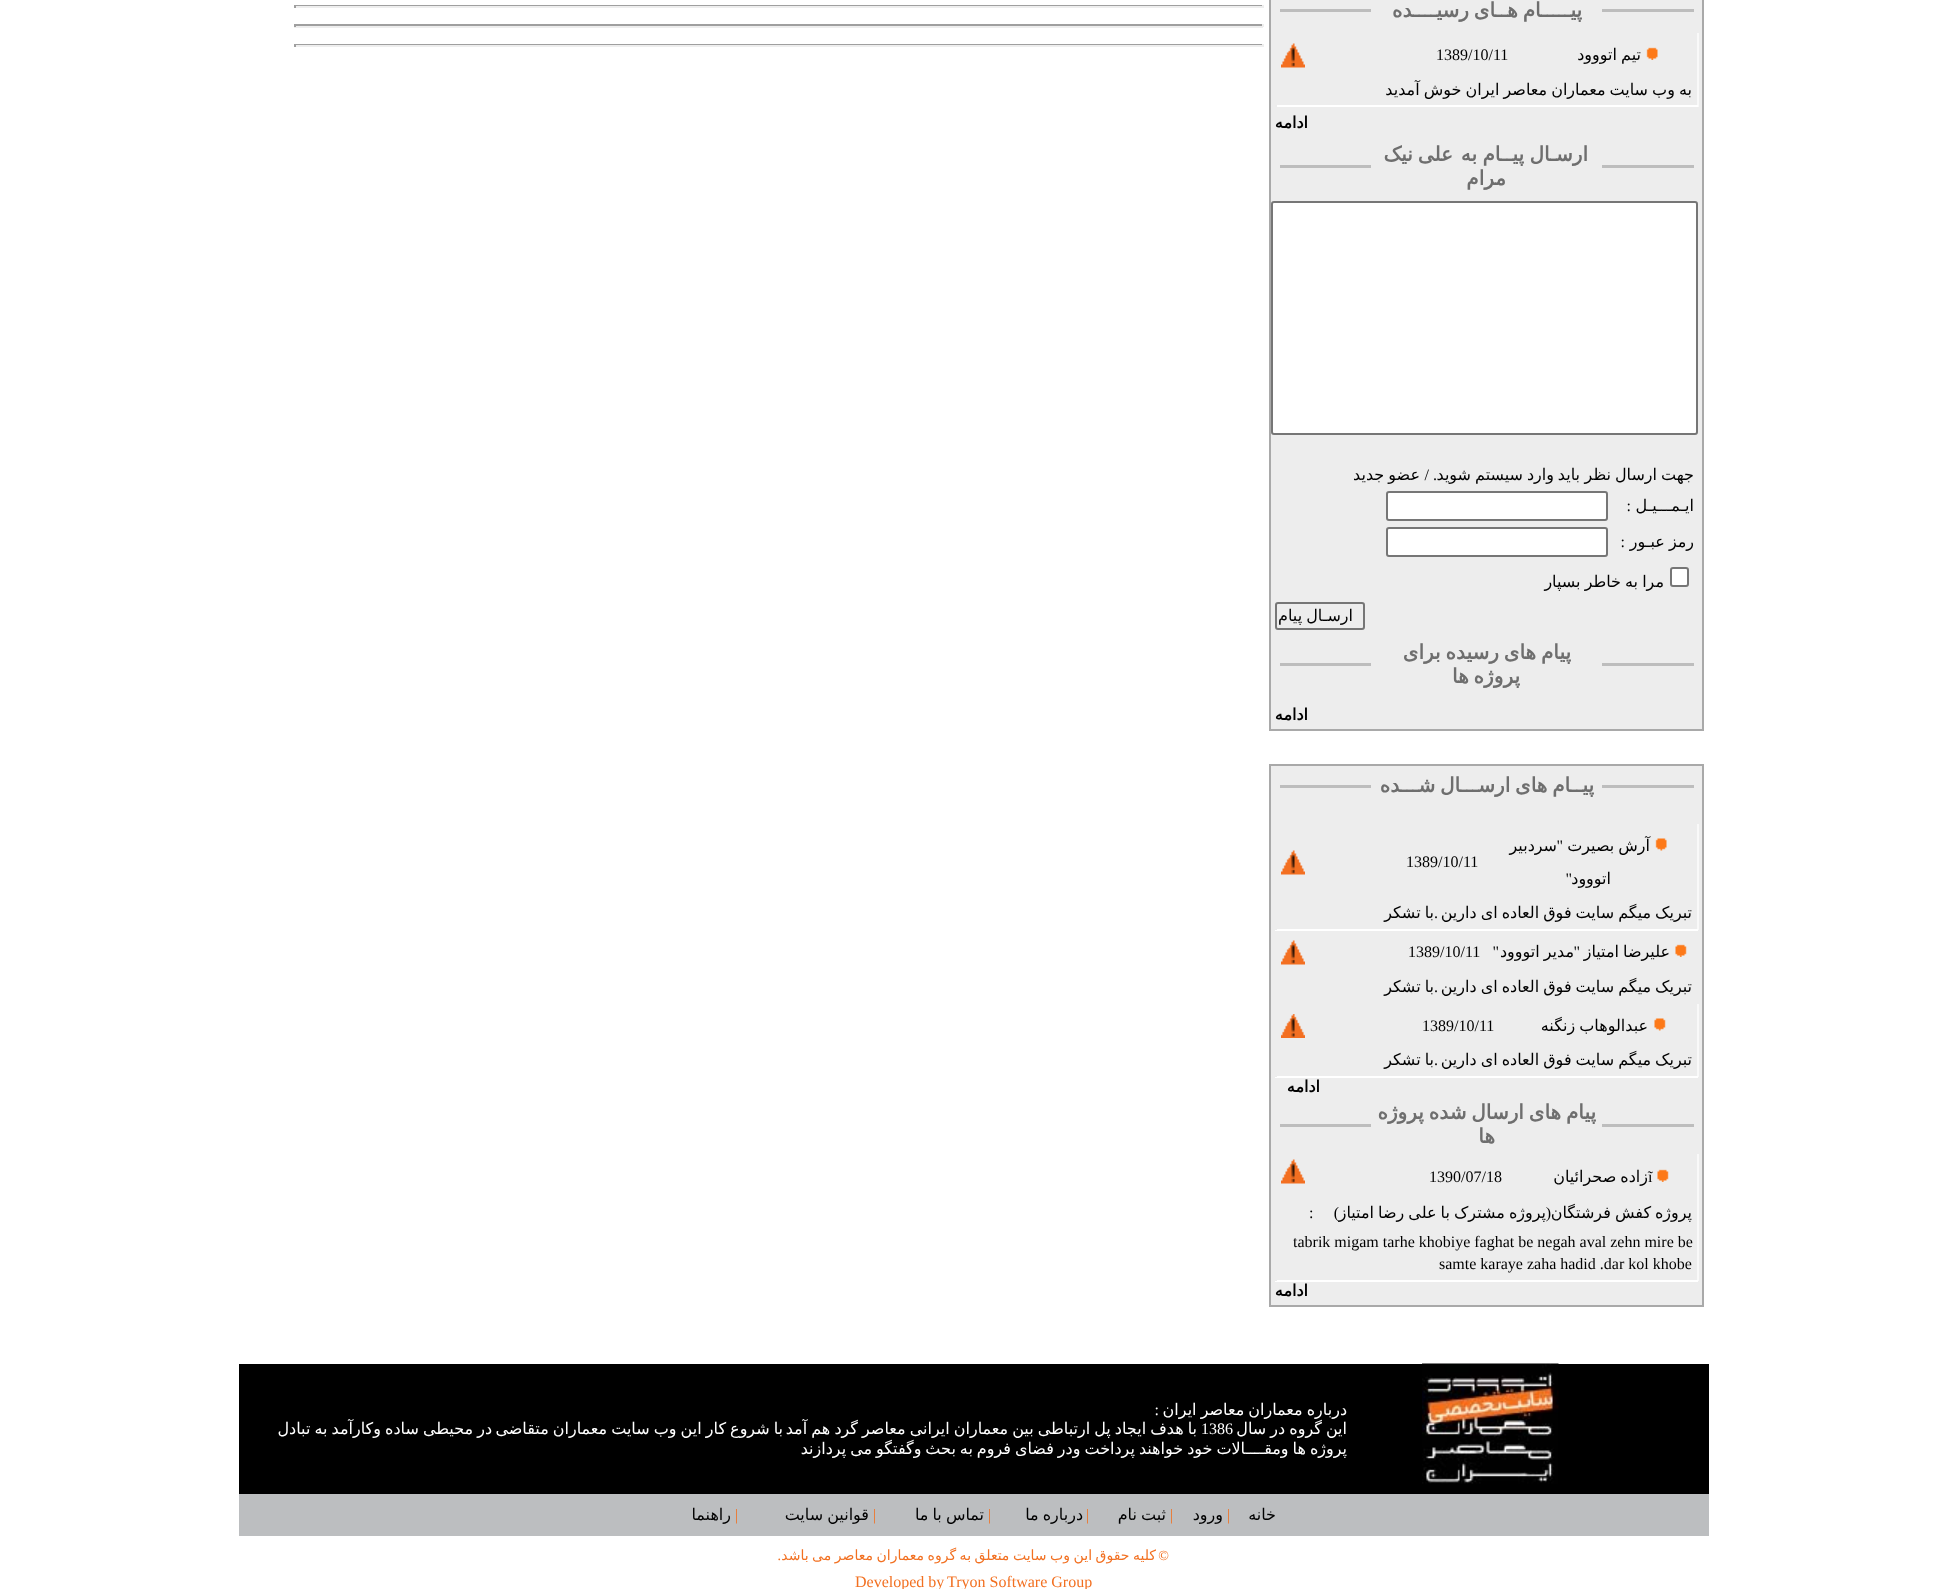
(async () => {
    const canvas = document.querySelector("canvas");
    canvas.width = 1946;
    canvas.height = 1589;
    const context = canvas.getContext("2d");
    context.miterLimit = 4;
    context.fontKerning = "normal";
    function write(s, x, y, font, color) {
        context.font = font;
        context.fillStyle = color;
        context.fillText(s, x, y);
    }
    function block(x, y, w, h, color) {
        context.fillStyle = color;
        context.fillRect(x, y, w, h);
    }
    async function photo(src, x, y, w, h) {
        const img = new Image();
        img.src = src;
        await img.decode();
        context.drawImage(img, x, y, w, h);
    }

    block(0, 0, 1946, 1589, "rgb(255, 255, 255)");
    context.fillStyle = "rgb(237, 237, 237)";
    context.beginPath();
    context.rect(1270, -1, 433, 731);
    context.fill();
    context.strokeStyle = "rgb(169, 169, 169)";
    context.lineWidth = 2;
    context.stroke();
    block(1602, 9, 92, 3, "rgb(189, 189, 189)");
    context.wordSpacing = "-1.5px";
    context.direction = "rtl";
    write("پیـــــام هــای رسیــــده", 1582, 17, "bold 20px DejaVu Sans", "rgb(110, 110, 110)");
    block(1280, 9, 91, 3, "rgb(189, 189, 189)");
    block(1697, 33, 2, 74, "rgb(249, 249, 249)");
    block(1275, 105, 423, 2, "rgb(255, 255, 255)");
    block(1275, 105, 2, 2, "rgb(236, 236, 236)");
    await photo("media/1.png", 1646, 47, 12, 13);
    context.wordSpacing = "-1px";
    write("تيم اتووود", 1641, 60, "16px DejaVu Sans", "rgb(0, 0, 0)");
    context.wordSpacing = "0px";
    context.direction = "ltr";
    write("1389/10/11", 1436, 60, "16px Liberation Serif", "rgb(0, 0, 0)");
    await photo("media/2.png", 1281, 43, 24, 25);
    context.wordSpacing = "-1px";
    context.direction = "rtl";
    write("به وب سايت معماران معاصر ايران خوش آمديد", 1692, 95, "16px DejaVu Sans", "rgb(0, 0, 0)");
    context.wordSpacing = "0px";
    write("ادامه", 1308, 128, "bold 16px DejaVu Sans", "rgb(0, 0, 0)");
    block(1602, 165, 92, 3, "rgb(189, 189, 189)");
    context.wordSpacing = "-1px";
    write("ارسـال پیــام به", 1588, 161, "bold 20px DejaVu Sans", "rgb(110, 110, 110)");
    context.wordSpacing = "-1.5px";
    write("علی نیک", 1453, 161, "bold 20px DejaVu Sans", "rgb(110, 110, 110)");
    context.wordSpacing = "0px";
    write("مرام", 1506, 185, "bold 20px DejaVu Sans", "rgb(110, 110, 110)");
    block(1280, 165, 91, 3, "rgb(189, 189, 189)");
    context.fillStyle = "rgb(255, 255, 255)";
    context.beginPath();
    context.roundRect(1272, 202, 425, 232, 2);
    context.fill();
    context.strokeStyle = "rgb(118, 118, 118)";
    context.stroke();
    write("جهت", 1694, 480, "16px DejaVu Sans", "rgb(0, 0, 0)");
    write("ارسال", 1657, 480, "16px DejaVu Sans", "rgb(0, 0, 0)");
    write("نظر", 1611, 480, "16px DejaVu Sans", "rgb(0, 0, 0)");
    write("باید", 1580, 480, "16px DejaVu Sans", "rgb(0, 0, 0)");
    write("وارد", 1554, 480, "16px DejaVu Sans", "rgb(0, 0, 0)");
    write("سیستم", 1523, 480, "16px DejaVu Sans", "rgb(0, 0, 0)");
    write("شوید", 1471, 480, "16px DejaVu Sans", "rgb(0, 0, 0)");
    write(". /", 1437, 480, "16px Liberation Serif", "rgb(0, 0, 0)");
    context.wordSpacing = "-1px";
    write("عضو جدید", 1420, 480, "16px DejaVu Sans", "rgb(0, 0, 0)");
    context.wordSpacing = "0px";
    write("ایـمـــیـل", 1694, 511, "16px DejaVu Sans", "rgb(0, 0, 0)");
    write(":", 1631, 511, "16px Liberation Serif", "rgb(0, 0, 0)");
    context.fillStyle = "rgb(255, 255, 255)";
    context.beginPath();
    context.roundRect(1387, 492, 220, 28, 2);
    context.fill();
    context.stroke();
    context.wordSpacing = "-1px";
    write("رمز عبـور", 1694, 547, "16px DejaVu Sans", "rgb(0, 0, 0)");
    context.wordSpacing = "0px";
    write(":", 1625, 547, "16px Liberation Serif", "rgb(0, 0, 0)");
    context.fillStyle = "rgb(255, 255, 255)";
    context.beginPath();
    context.roundRect(1387, 528, 220, 28, 2);
    context.fill();
    context.stroke();
    context.beginPath();
    context.roundRect(1671, 568, 17, 18, 2);
    context.fill();
    context.stroke();
    context.wordSpacing = "-1px";
    write("مرا به خاطر بسپار", 1664, 587, "16px DejaVu Sans", "rgb(0, 0, 0)");
    context.beginPath();
    context.roundRect(1276, 603, 88, 26, 2);
    context.stroke();
    write("ارسـال پیام", 1353, 621, "16px DejaVu Sans", "rgb(0, 0, 0)");
    block(1602, 663, 92, 3, "rgb(189, 189, 189)");
    context.wordSpacing = "-1.5px";
    write("پیام های رسیده برای", 1571, 659, "bold 20px DejaVu Sans", "rgb(110, 110, 110)");
    write("پروژه ها", 1520, 683, "bold 20px DejaVu Sans", "rgb(110, 110, 110)");
    block(1280, 663, 91, 3, "rgb(189, 189, 189)");
    context.wordSpacing = "0px";
    write("ادامه", 1308, 720, "bold 16px DejaVu Sans", "rgb(0, 0, 0)");
    context.fillStyle = "rgb(237, 237, 237)";
    context.beginPath();
    context.rect(1270, 765, 433, 541);
    context.fill();
    context.strokeStyle = "rgb(169, 169, 169)";
    context.stroke();
    block(1602, 785, 92, 3, "rgb(189, 189, 189)");
    context.wordSpacing = "-1.5px";
    write("پیــام های ارســـال شـــده", 1594, 792, "bold 20px DejaVu Sans", "rgb(110, 110, 110)");
    block(1280, 785, 91, 3, "rgb(189, 189, 189)");
    block(1697, 824, 2, 106, "rgb(249, 249, 249)");
    block(1275, 929, 423, 2, "rgb(255, 255, 255)");
    block(1275, 929, 2, 1, "rgb(236, 236, 236)");
    await photo("media/3.png", 1655, 838, 12, 13);
    context.wordSpacing = "-1px";
    write("آرش بصیرت", 1650, 851, "16px DejaVu Sans", "rgb(0, 0, 0)");
    context.wordSpacing = "0px";
    write("\"", 1563, 851, "16px Liberation Serif", "rgb(0, 0, 0)");
    write("سردبیر", 1557, 851, "16px DejaVu Sans", "rgb(0, 0, 0)");
    write("اتووود", 1611, 884, "16px DejaVu Sans", "rgb(0, 0, 0)");
    write("\"", 1572, 884, "16px Liberation Serif", "rgb(0, 0, 0)");
    context.direction = "ltr";
    write("1389/10/11", 1406, 867, "16px Liberation Serif", "rgb(0, 0, 0)");
    await photo("media/2.png", 1281, 850, 24, 25);
    context.wordSpacing = "-1px";
    context.direction = "rtl";
    write("تبریک میگم سایت فوق العاده ای دارین", 1692, 918, "16px DejaVu Sans", "rgb(0, 0, 0)");
    context.wordSpacing = "0px";
    write(".", 1438, 918, "16px Liberation Serif", "rgb(0, 0, 0)");
    context.wordSpacing = "-1px";
    write("با تشکر", 1434, 918, "16px DejaVu Sans", "rgb(0, 0, 0)");
    await photo("media/4.png", 1675, 944, 12, 13);
    write("علیرضا امتیاز", 1670, 957, "16px DejaVu Sans", "rgb(0, 0, 0)");
    context.wordSpacing = "0px";
    write("\"", 1580, 957, "16px Liberation Serif", "rgb(0, 0, 0)");
    context.wordSpacing = "-1px";
    write("مدیر اتووود", 1574, 957, "16px DejaVu Sans", "rgb(0, 0, 0)");
    context.wordSpacing = "0px";
    write("\"", 1499, 957, "16px Liberation Serif", "rgb(0, 0, 0)");
    context.direction = "ltr";
    write("1389/10/11", 1408, 957, "16px Liberation Serif", "rgb(0, 0, 0)");
    await photo("media/2.png", 1281, 940, 24, 25);
    context.wordSpacing = "-1px";
    context.direction = "rtl";
    write("تبریک میگم سایت فوق العاده ای دارین", 1692, 992, "16px DejaVu Sans", "rgb(0, 0, 0)");
    context.wordSpacing = "0px";
    write(".", 1438, 992, "16px Liberation Serif", "rgb(0, 0, 0)");
    context.wordSpacing = "-1px";
    write("با تشکر", 1434, 992, "16px DejaVu Sans", "rgb(0, 0, 0)");
    block(1697, 1004, 2, 73, "rgb(249, 249, 249)");
    block(1275, 1076, 423, 2, "rgb(255, 255, 255)");
    block(1275, 1076, 2, 1, "rgb(236, 236, 236)");
    await photo("media/5.png", 1654, 1018, 12, 13);
    write("عبدالوهاب زنگنه", 1648, 1031, "16px DejaVu Sans", "rgb(0, 0, 0)");
    context.wordSpacing = "0px";
    context.direction = "ltr";
    write("1389/10/11", 1422, 1031, "16px Liberation Serif", "rgb(0, 0, 0)");
    await photo("media/6.png", 1281, 1014, 24, 24);
    context.wordSpacing = "-1px";
    context.direction = "rtl";
    write("تبریک میگم سایت فوق العاده ای دارین", 1692, 1065, "16px DejaVu Sans", "rgb(0, 0, 0)");
    context.wordSpacing = "0px";
    write(".", 1438, 1065, "16px Liberation Serif", "rgb(0, 0, 0)");
    context.wordSpacing = "-1px";
    write("با تشکر", 1434, 1065, "16px DejaVu Sans", "rgb(0, 0, 0)");
    context.wordSpacing = "0px";
    write("ادامه", 1320, 1092, "bold 16px DejaVu Sans", "rgb(0, 0, 0)");
    block(1602, 1124, 92, 3, "rgb(189, 189, 189)");
    context.wordSpacing = "-1.5px";
    write("پیام های ارسال شده پروژه", 1596, 1119, "bold 20px DejaVu Sans", "rgb(110, 110, 110)");
    context.wordSpacing = "0px";
    write("ها", 1495, 1143, "bold 20px DejaVu Sans", "rgb(110, 110, 110)");
    block(1280, 1124, 91, 3, "rgb(189, 189, 189)");
    block(1697, 1154, 2, 127, "rgb(249, 249, 249)");
    block(1275, 1280, 423, 2, "rgb(255, 255, 255)");
    block(1275, 1280, 2, 1, "rgb(236, 236, 236)");
    await photo("media/4.png", 1657, 1169, 12, 13);
    context.wordSpacing = "-1px";
    write("زاده صحرائيان", 1648, 1182, "16px DejaVu Sans", "rgb(0, 0, 0)");
    context.wordSpacing = "0px";
    context.direction = "ltr";
    write("ĩ", 1648, 1182, "16px Liberation Serif", "rgb(0, 0, 0)");
    write("1390/07/18", 1429, 1182, "16px Liberation Serif", "rgb(0, 0, 0)");
    await photo("media/2.png", 1281, 1159, 24, 25);
    context.wordSpacing = "-1px";
    context.direction = "rtl";
    write("کفش فرشتگان", 1651, 1218, "16px DejaVu Sans", "rgb(0, 0, 0)");
    write("پروژه مشترک با علی رضا امتیاز", 1546, 1218, "16px DejaVu Sans", "rgb(0, 0, 0)");
    context.wordSpacing = "0px";
    write(")", 1339, 1218, "16px Liberation Serif", "rgb(0, 0, 0)");
    write("پروژه", 1692, 1218, "16px DejaVu Sans", "rgb(0, 0, 0)");
    write("(", 1551, 1218, "16px Liberation Serif", "rgb(0, 0, 0)");
    context.direction = "ltr";
    write(":", 1309, 1218, "16px Liberation Serif", "rgb(0, 0, 0)");
    write("tabrik migam tarhe khobiye faghat be negah aval zehn mire be", 1293, 1247, "16px Liberation Serif", "rgb(0, 0, 0)");
    write("samte karaye zaha hadid .dar kol khobe", 1439, 1269, "16px Liberation Serif", "rgb(0, 0, 0)");
    context.direction = "rtl";
    write("ادامه", 1308, 1296, "bold 16px DejaVu Sans", "rgb(0, 0, 0)");
    block(294, 5, 969, 1, "rgb(159, 159, 159)");
    block(1262, 5, 2, 3, "rgb(238, 238, 238)");
    block(294, 6, 969, 2, "rgb(238, 238, 238)");
    block(294, 5, 2, 3, "rgb(159, 159, 159)");
    block(294, 24, 969, 2, "rgb(159, 159, 159)");
    block(1262, 24, 2, 3, "rgb(238, 238, 238)");
    block(294, 26, 969, 2, "rgb(238, 238, 238)");
    block(294, 24, 2, 3, "rgb(159, 159, 159)");
    block(294, 44, 969, 1, "rgb(159, 159, 159)");
    block(1262, 44, 2, 3, "rgb(238, 238, 238)");
    block(294, 45, 969, 2, "rgb(238, 238, 238)");
    block(294, 44, 2, 3, "rgb(159, 159, 159)");
    block(239, 1364, 1470, 130, "rgb(0, 0, 0)");
    await photo("media/7.png", 1422, 1363, 137, 121);
    context.wordSpacing = "-1px";
    write("درباره معماران معاصر ایران", 1347, 1415, "16px DejaVu Sans", "rgb(255, 255, 255)");
    context.wordSpacing = "0px";
    write(":", 1159, 1415, "16px Liberation Serif", "rgb(255, 255, 255)");
    context.wordSpacing = "-1px";
    write("این گروه در سال", 1347, 1434, "16px DejaVu Sans", "rgb(255, 255, 255)");
    write("با شروع کار این وب سایت معماران متقاضی", 783, 1434, "16px DejaVu Sans", "rgb(255, 255, 255)");
    write("با هدف ایجاد پل ارتباطی بین معماران ایرانی معاصر گرد هم آمد", 1197, 1434, "16px DejaVu Sans", "rgb(255, 255, 255)");
    context.wordSpacing = "0px";
    context.direction = "ltr";
    write("1386", 1201, 1434, "16px Liberation Serif", "rgb(255, 255, 255)");
    context.wordSpacing = "-1px";
    context.direction = "rtl";
    write("در محیطی ساده وکارآمد به تبادل", 492, 1434, "16px DejaVu Sans", "rgb(255, 255, 255)");
    context.wordSpacing = "-1.1px";
    write("پروژه ها ومقــــالات خود خواهند پرداخت ودر فضای فروم به بحث وگفتگو می پردازند", 1347, 1454, "16px DejaVu Sans", "rgb(255, 255, 255)");
    block(239, 1494, 1470, 42, "rgb(188, 190, 192)");
    context.wordSpacing = "0px";
    write("خانه", 1276, 1520, "16px DejaVu Sans", "rgb(0, 0, 0)");
    context.direction = "ltr";
    write("|", 1227, 1520, "16px Liberation Serif", "rgb(242, 112, 33)");
    context.direction = "rtl";
    write("ورود", 1223, 1520, "16px DejaVu Sans", "rgb(0, 0, 0)");
    context.direction = "ltr";
    write("|", 1170, 1520, "16px Liberation Serif", "rgb(242, 112, 33)");
    context.wordSpacing = "-1px";
    context.direction = "rtl";
    write("ثبت نام", 1166, 1520, "16px DejaVu Sans", "rgb(0, 0, 0)");
    context.wordSpacing = "0px";
    context.direction = "ltr";
    write("|", 1086, 1520, "16px Liberation Serif", "rgb(242, 112, 33)");
    context.wordSpacing = "-1px";
    context.direction = "rtl";
    write("درباره ما", 1083, 1520, "16px DejaVu Sans", "rgb(0, 0, 0)");
    context.wordSpacing = "0px";
    context.direction = "ltr";
    write("|", 988, 1520, "16px Liberation Serif", "rgb(242, 112, 33)");
    context.wordSpacing = "-1px";
    context.direction = "rtl";
    write("تماس با ما", 984, 1520, "16px DejaVu Sans", "rgb(0, 0, 0)");
    context.wordSpacing = "0px";
    context.direction = "ltr";
    write("|", 873, 1520, "16px Liberation Serif", "rgb(242, 112, 33)");
    context.wordSpacing = "-1px";
    context.direction = "rtl";
    write("قوانین سایت", 869, 1520, "16px DejaVu Sans", "rgb(0, 0, 0)");
    context.wordSpacing = "0px";
    context.direction = "ltr";
    write("|", 735, 1520, "16px Liberation Serif", "rgb(242, 112, 33)");
    context.direction = "rtl";
    write("راهنما", 731, 1520, "16px DejaVu Sans", "rgb(0, 0, 0)");
    context.wordSpacing = "-0.9px";
    write("کلیه حقوق این وب سایت متعلق به گروه معماران معاصر می باشد", 1156, 1560, "14px DejaVu Sans", "rgb(242, 112, 33)");
    context.wordSpacing = "0px";
    write("©", 1169, 1560, "14px Liberation Serif", "rgb(242, 112, 33)");
    write(".", 781, 1560, "14px Liberation Serif", "rgb(242, 112, 33)");
    context.direction = "ltr";
    write("Tryon Software Group", 947, 1587, "16px Liberation Serif", "rgb(242, 112, 33)");
    write("Developed by", 855, 1587, "16px Liberation Serif", "rgb(242, 112, 33)");
})();
